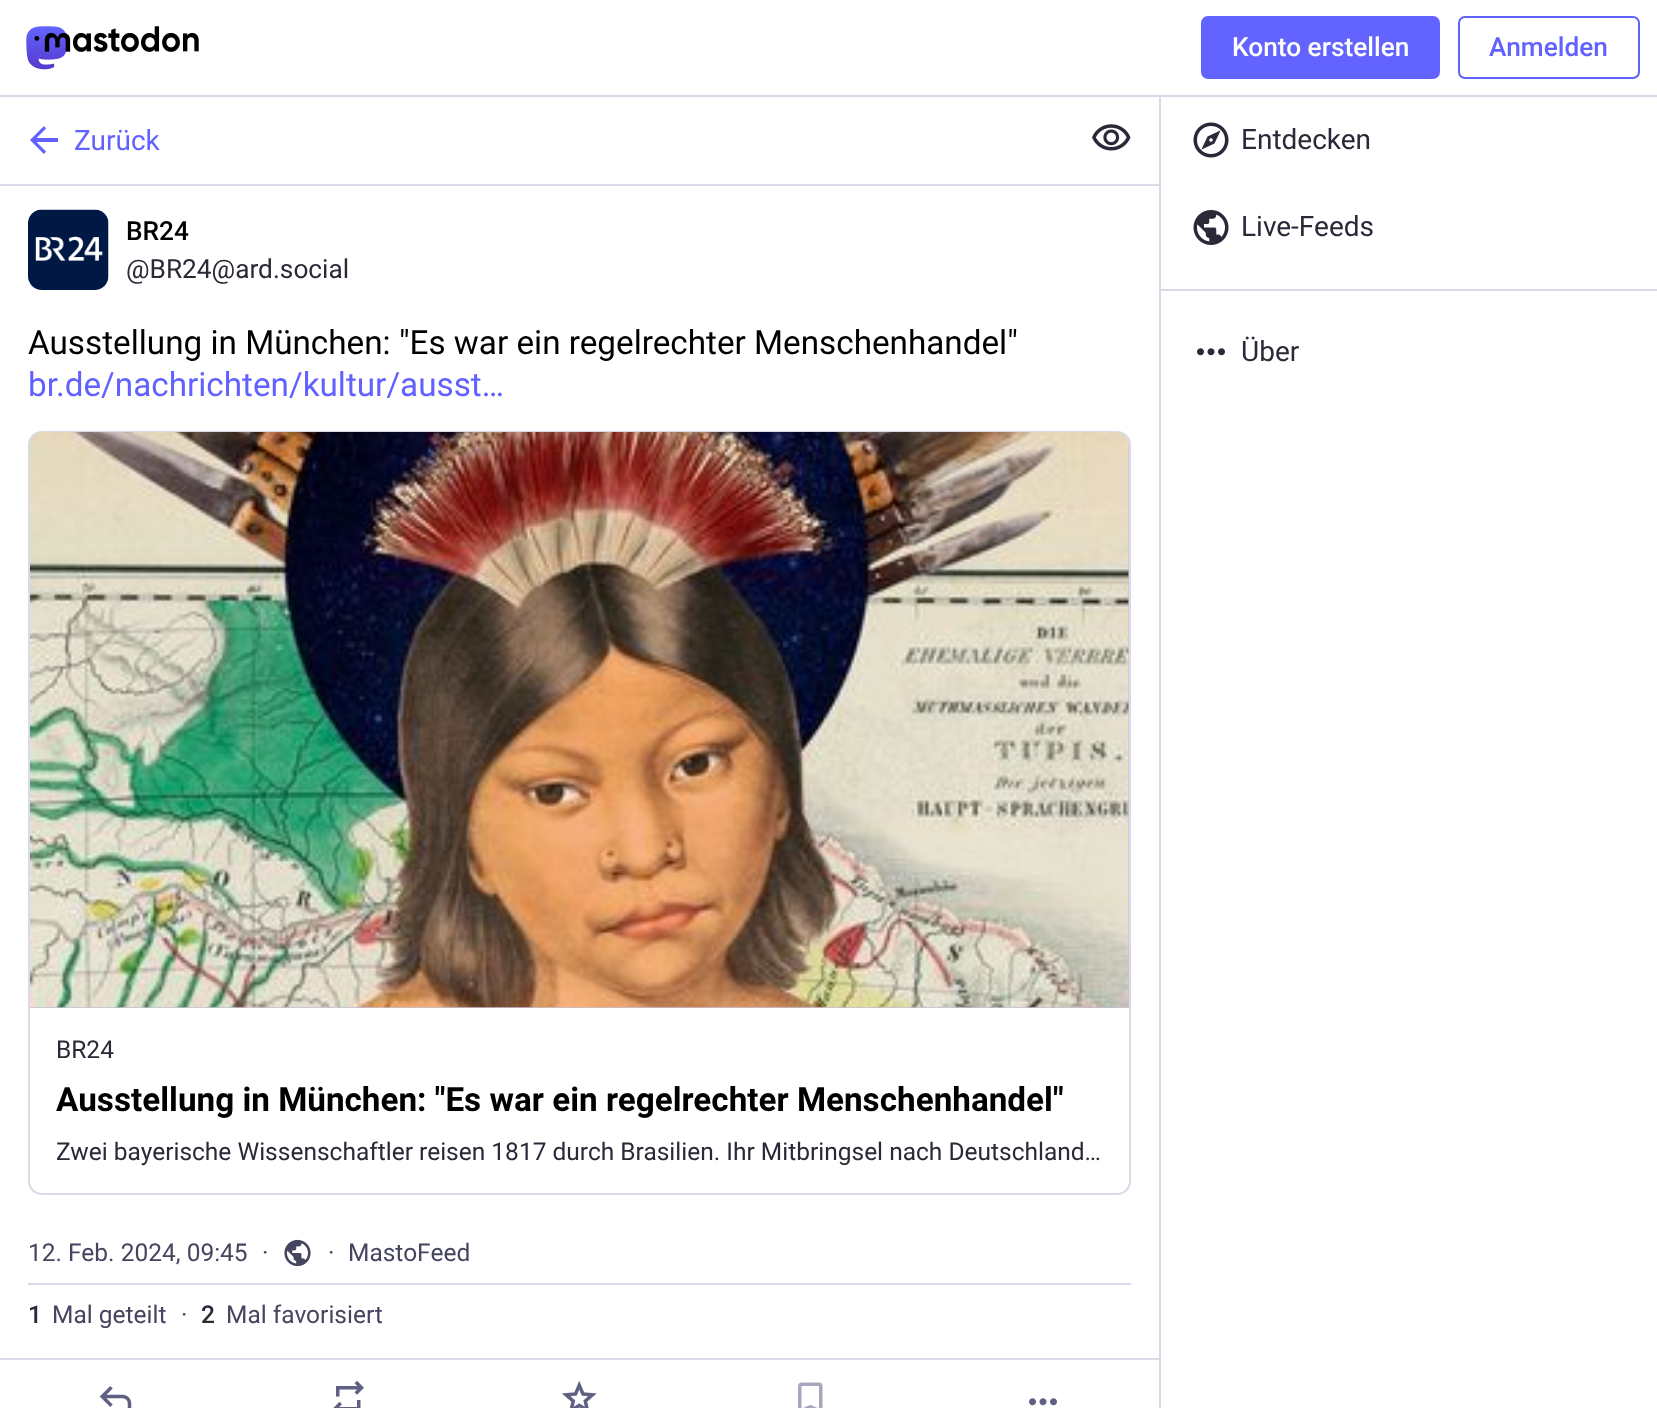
(async () => {
    const canvas = document.querySelector("canvas");
    canvas.width = 1657;
    canvas.height = 1408;
    const context = canvas.getContext("2d");
    context.miterLimit = 4;
    context.fontKerning = "normal";
    function write(s, x, y, font, color) {
        context.font = font;
        context.fillStyle = color;
        context.fillText(s, x, y);
    }
    function block(x, y, w, h, color) {
        context.fillStyle = color;
        context.fillRect(x, y, w, h);
    }
    function card(x, y, w, h, r, color) {
        context.fillStyle = color;
        context.beginPath();
        context.roundRect(x, y, w, h, r);
        context.fill();
    }
    async function photo(src, x, y, w, h) {
        const img = new Image();
        img.src = src;
        await img.decode();
        context.drawImage(img, x, y, w, h);
    }

    block(0, 0, 1657, 1408, "rgb(255, 255, 255)");
    block(1159, 96, 2, 1312, "rgb(217, 217, 232)");
    block(0, 95, 1657, 2, "rgb(217, 217, 232)");
    await photo("media/1.png", 26, 26, 173, 44);
    card(1201, 16, 239, 63, 7, "rgb(99, 100, 255)");
    write("Konto erstellen", 1232, 56, "500 26.25px Roboto", "rgb(255, 255, 255)");
    context.beginPath();
    context.roundRect(1459, 17, 180, 61, 6);
    context.strokeStyle = "rgb(97, 97, 255)";
    context.lineWidth = 2;
    context.stroke();
    write("Anmelden", 1489, 56, "500 26.25px Roboto", "rgb(97, 97, 255)");
    block(0, 184, 1159, 2, "rgb(217, 217, 232)");
    context.fillStyle = "rgb(97, 97, 255)";
    context.beginPath();
    context.moveTo(36.5, 142);
    context.lineTo(46, 151.5);
    context.lineTo(44, 154);
    context.lineTo(30, 140);
    context.lineTo(44, 126);
    context.lineTo(46, 128.5);
    context.lineTo(36.5, 138);
    context.lineTo(58, 138);
    context.lineTo(58, 142);
    context.closePath();
    context.fill();
    write("Zurück", 74, 150, "28px Roboto", "rgb(97, 97, 255)");
    await photo("media/2.png", 1092, 124, 39, 27);
    await photo("media/3.png", 28, 209, 81, 81);
    write("BR24", 126, 240, "500 26.25px Roboto", "rgb(0, 0, 0)");
    write("@BR24@ard.social", 126, 278, "26.25px Roboto", "rgb(41, 41, 56)");
    write("Ausstellung in München: \"Es war ein regelrechter Menschenhandel\"", 28, 354, "33.25px Roboto", "rgb(0, 0, 0)");
    write("br.de/nachrichten/kultur/ausst…", 28, 396, "33.25px Roboto", "rgb(97, 97, 255)");
    context.beginPath();
    context.roundRect(29, 432, 1101, 762, 13);
    context.strokeStyle = "rgb(217, 217, 232)";
    context.stroke();
    context.save();
    context.beginPath();
    context.roundRect(30, 432, 1099, 762, 12);
    context.clip();
    context.fillStyle = "rgb(198, 191, 217)";
    context.beginPath();
    context.roundRect(30, 432, 1099, 576, [14, 14, 0, 0]);
    context.fill();
    context.restore();
    await photo("media/4.png", 30, 432, 1099, 576);
    write("BR24", 56, 1058, "24.5px Roboto", "rgb(41, 41, 56)");
    write("Ausstellung in München: \"Es war ein regelrechter Menschenhandel\"", 56, 1111, "bold 33.25px Roboto", "rgb(0, 0, 0)");
    write("Zwei bayerische Wissenschaftler reisen 1817 durch Brasilien. Ihr Mitbringsel nach Deutschland…", 56, 1160, "24.5px Roboto", "rgb(41, 41, 56)");
    block(28, 1283, 1103, 2, "rgb(217, 217, 232)");
    write("12. Feb. 2024, 09:45", 28, 1261, "24.5px Roboto", "rgb(69, 69, 95)");
    write("·", 262, 1261, "24.5px Roboto", "rgb(69, 69, 95)");
    await photo("media/5.png", 284, 1239, 27, 28);
    write("·", 328, 1261, "24.5px Roboto", "rgb(69, 69, 95)");
    write("MastoFeed", 348, 1261, "24.5px Roboto", "rgb(69, 69, 95)");
    write("1", 28, 1323, "500 24.5px Roboto", "rgb(41, 41, 56)");
    write("Mal geteilt", 52, 1323, "24.5px Roboto", "rgb(69, 69, 95)");
    write("·", 181, 1323, "24.5px Roboto", "rgb(69, 69, 95)");
    write("2", 201, 1323, "500 24.5px Roboto", "rgb(41, 41, 56)");
    write("Mal favorisiert", 226, 1323, "24.5px Roboto", "rgb(69, 69, 95)");
    block(0, 1358, 1159, 2, "rgb(217, 217, 232)");
    await photo("media/6.png", 99, 1386, 33, 22);
    await photo("media/7.png", 333, 1380, 31, 28);
    await photo("media/8.png", 561, 1380, 36, 28);
    await photo("media/9.png", 798, 1382, 25, 26);
    await photo("media/10.png", 1029, 1398, 28, 8);
    await photo("media/11.png", 1193, 122, 36, 36);
    write("Entdecken", 1241, 149, "28px Roboto", "rgb(41, 41, 56)");
    await photo("media/12.png", 1193, 210, 36, 35);
    write("Live-Feeds", 1241, 236, "28px Roboto", "rgb(41, 41, 56)");
    block(1160, 289, 497, 2, "rgb(217, 217, 232)");
    await photo("media/13.png", 1197, 348, 28, 8);
    write("Über", 1241, 361, "28px Roboto", "rgb(41, 41, 56)");
})();
